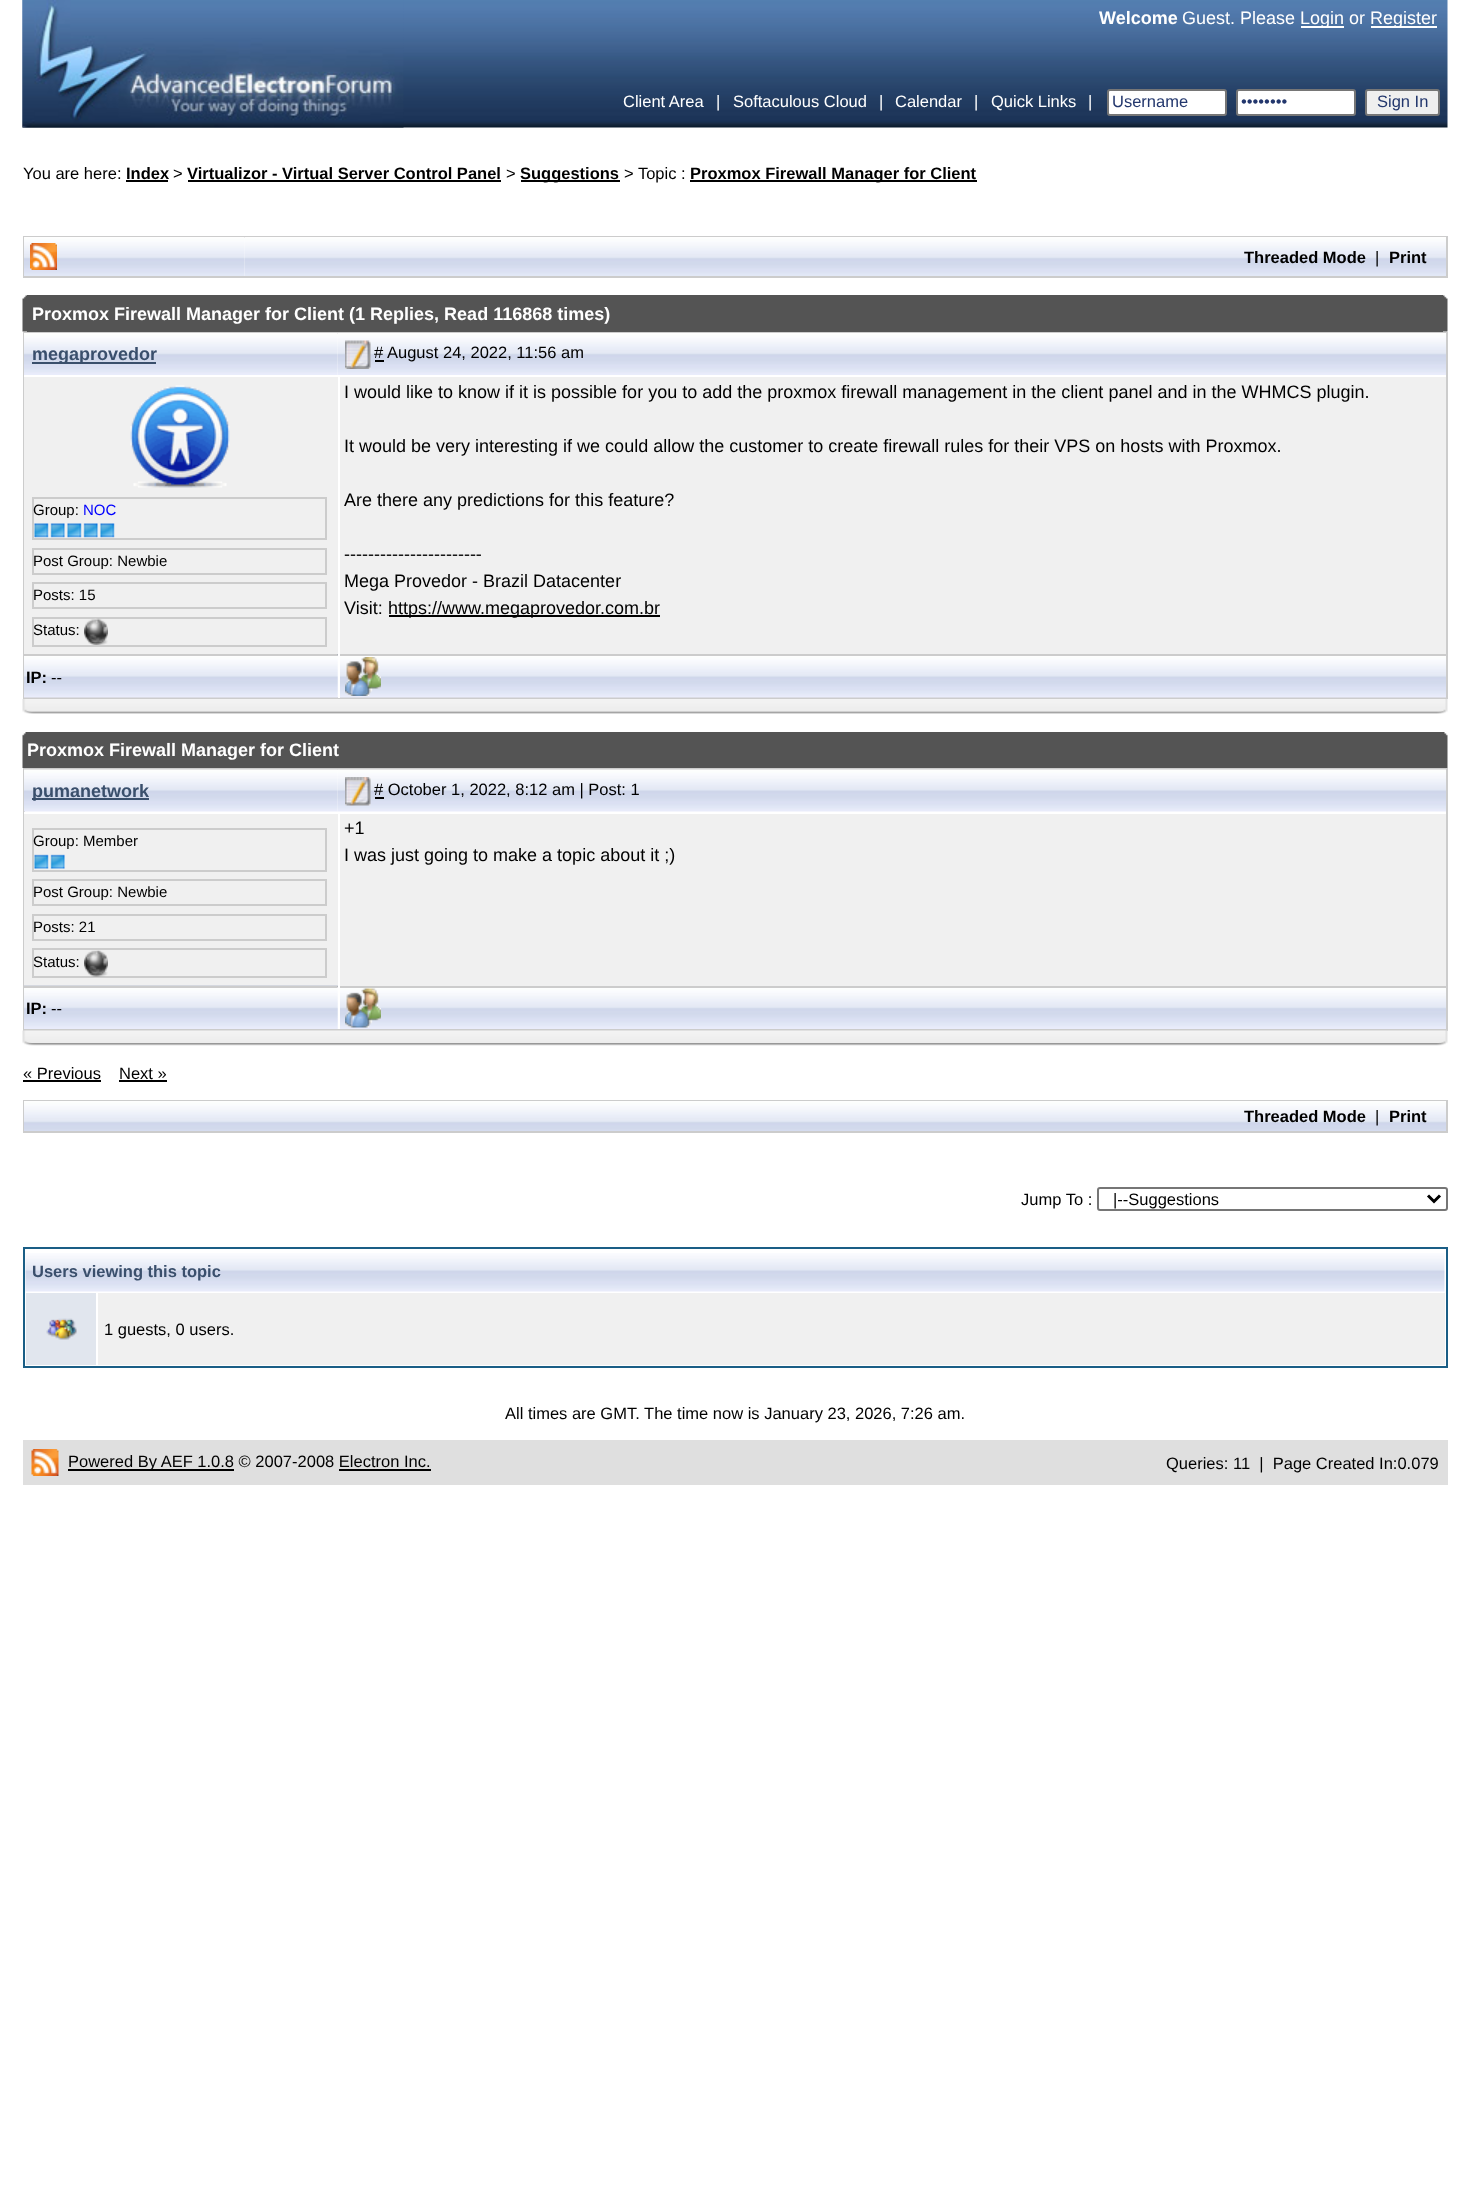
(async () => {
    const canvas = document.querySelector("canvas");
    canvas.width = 1470;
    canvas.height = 2188;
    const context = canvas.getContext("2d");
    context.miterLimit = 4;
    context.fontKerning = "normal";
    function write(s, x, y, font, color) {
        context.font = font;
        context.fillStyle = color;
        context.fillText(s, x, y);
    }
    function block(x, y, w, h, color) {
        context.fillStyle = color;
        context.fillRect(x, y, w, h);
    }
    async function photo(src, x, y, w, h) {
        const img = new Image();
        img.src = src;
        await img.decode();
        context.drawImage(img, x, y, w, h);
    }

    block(0, 0, 1470, 2188, "rgb(255, 255, 255)");
    await photo("media/1.png", 22, 0, 1426, 128);
    await photo("media/2.png", 22, 0, 382, 128);
    write("Welcome", 1099, 24, "bold 18px Liberation Sans", "rgb(255, 255, 255)");
    write("Guest. Please", 1182, 24, "18px Liberation Sans", "rgb(255, 255, 255)");
    block(1301, 26, 43, 2, "rgb(255, 255, 255)");
    write("Login or", 1300, 24, "18px Liberation Sans", "rgb(255, 255, 255)");
    block(1371, 26, 66, 2, "rgb(255, 255, 255)");
    write("Register", 1370, 24, "18px Liberation Sans", "rgb(255, 255, 255)");
    write("Client Area", 623, 107, "16.5px Liberation Sans", "rgb(255, 255, 255)");
    write("|", 716, 107, "16.5px Liberation Sans", "rgb(255, 255, 255)");
    write("Softaculous Cloud", 733, 107, "16.5px Liberation Sans", "rgb(255, 255, 255)");
    write("|", 879, 107, "16.5px Liberation Sans", "rgb(255, 255, 255)");
    write("Calendar", 895, 107, "16.5px Liberation Sans", "rgb(255, 255, 255)");
    write("|", 974, 107, "16.5px Liberation Sans", "rgb(255, 255, 255)");
    write("Quick Links", 991, 107, "16.5px Liberation Sans", "rgb(255, 255, 255)");
    write("|", 1088, 107, "16.5px Liberation Sans", "rgb(255, 255, 255)");
    context.beginPath();
    context.roundRect(1108, 90, 118, 25, 2);
    context.fill();
    context.strokeStyle = "rgb(118, 118, 118)";
    context.lineWidth = 2;
    context.stroke();
    write("Username", 1112, 107, "16.5px Liberation Sans", "rgb(35, 55, 109)");
    context.fillStyle = "rgb(255, 255, 255)";
    context.beginPath();
    context.roundRect(1237, 90, 118, 25, 2);
    context.fill();
    context.stroke();
    write("••••••••", 1241, 107, "16.5px Liberation Sans", "rgb(35, 55, 109)");
    context.fillStyle = "rgb(239, 239, 239)";
    context.beginPath();
    context.roundRect(1366, 90, 73, 25, 2);
    context.fill();
    context.stroke();
    write("Sign In", 1377, 107, "16.5px Liberation Sans", "rgb(35, 55, 109)");
    write("You are here:", 23, 179, "16.5px Liberation Sans", "rgb(0, 0, 0)");
    write("Index", 126, 179, "bold 16.5px Liberation Sans", "rgb(0, 0, 0)");
    block(126, 180, 42, 2, "rgb(0, 0, 0)");
    write(">", 173, 179, "16.5px Liberation Sans", "rgb(0, 0, 0)");
    write("Virtualizor - Virtual Server Control Panel", 187, 179, "bold 16.5px Liberation Sans", "rgb(0, 0, 0)");
    block(188, 180, 313, 2, "rgb(0, 0, 0)");
    write(">", 506, 179, "16.5px Liberation Sans", "rgb(0, 0, 0)");
    block(521, 180, 99, 2, "rgb(0, 0, 0)");
    write("Suggestions", 520, 179, "bold 16.5px Liberation Sans", "rgb(0, 0, 0)");
    write("> Topic :", 624, 179, "16.5px Liberation Sans", "rgb(0, 0, 0)");
    block(690, 180, 287, 2, "rgb(0, 0, 0)");
    write("Proxmox Firewall Manager for Client", 690, 179, "bold 16.5px Liberation Sans", "rgb(0, 0, 0)");
    context.strokeStyle = "rgb(204, 204, 204)";
    context.strokeRect(24, 237, 1423, 40);
    await photo("media/3.png", 24, 237, 221, 39);
    await photo("media/4.png", 30, 243, 27, 27);
    await photo("media/5.png", 244, 237, 1202, 39);
    write("Threaded Mode", 1244, 263, "bold 16.5px Liberation Sans", "rgb(0, 0, 0)");
    write("|", 1375, 263, "16.5px Liberation Sans", "rgb(0, 0, 0)");
    write("Print", 1389, 263, "bold 16.5px Liberation Sans", "rgb(0, 0, 0)");
    await photo("media/6.png", 22, 295, 5, 37);
    block(27, 295, 1416, 37, "rgb(84, 84, 84)");
    write("Proxmox Firewall Manager for Client (1 Replies, Read 116868 times)", 32, 320, "bold 18px Liberation Sans", "rgb(255, 255, 255)");
    await photo("media/7.png", 1443, 295, 5, 37);
    context.strokeRect(24, 333, 1423, 365);
    await photo("media/8.png", 24, 333, 314, 42);
    block(32, 362, 124, 2, "rgb(58, 79, 108)");
    write("megaprovedor", 32, 360, "bold 18px Liberation Sans", "rgb(58, 79, 108)");
    await photo("media/9.png", 337, 333, 1109, 42);
    await photo("media/10.png", 345, 340, 26, 29);
    write("#", 374, 358, "16.5px Liberation Sans", "rgb(0, 0, 0)");
    block(375, 360, 9, 2, "rgb(0, 0, 0)");
    write("August 24, 2022, 11:56 am", 387, 358, "16.5px Liberation Sans", "rgb(0, 0, 0)");
    block(24, 377, 314, 277, "rgb(240, 240, 240)");
    block(24, 375, 1, 2, "rgb(255, 255, 255)");
    await photo("media/11.png", 130, 385, 100, 103);
    context.strokeRect(33, 498, 293, 41);
    write("Group:", 33, 515, "15px Liberation Sans", "rgb(0, 0, 0)");
    write("NOC", 83, 515, "15px Liberation Sans", "rgb(0, 0, 255)");
    await photo("media/12.png", 34, 523, 15, 15);
    await photo("media/13.png", 50, 523, 15, 15);
    await photo("media/12.png", 67, 523, 15, 15);
    await photo("media/13.png", 83, 523, 15, 15);
    await photo("media/12.png", 100, 523, 15, 15);
    context.strokeRect(33, 549, 293, 25);
    write("Post Group: Newbie", 33, 566, "15px Liberation Sans", "rgb(0, 0, 0)");
    context.strokeRect(33, 583, 293, 25);
    write("Posts: 15", 33, 600, "15px Liberation Sans", "rgb(0, 0, 0)");
    context.strokeRect(33, 618, 293, 28);
    write("Status:", 33, 635, "15px Liberation Sans", "rgb(0, 0, 0)");
    await photo("media/14.png", 84, 618, 24, 27);
    block(340, 377, 1106, 277, "rgb(240, 240, 240)");
    write("I would like to know if it is possible for you to add the proxmox firewall management in the client panel and in the WHMCS plugin.", 344, 398, "18px Liberation Sans", "rgb(0, 0, 0)");
    write("It would be very interesting if we could allow the customer to create firewall rules for their VPS on hosts with Proxmox.", 344, 452, "18px Liberation Sans", "rgb(0, 0, 0)");
    write("Are there any predictions for this feature?", 344, 506, "18px Liberation Sans", "rgb(0, 0, 0)");
    write("-----------------------", 344, 560, "18px Liberation Sans", "rgb(0, 0, 0)");
    write("Mega Provedor - Brazil Datacenter", 344, 587, "18px Liberation Sans", "rgb(0, 0, 0)");
    write("Visit:", 344, 614, "18px Liberation Sans", "rgb(0, 0, 0)");
    block(389, 615, 271, 2, "rgb(0, 0, 0)");
    write("https://www.megaprovedor.com.br", 388, 614, "18px Liberation Sans", "rgb(0, 0, 0)");
    await photo("media/15.png", 24, 656, 314, 42);
    block(24, 654, 314, 2, "rgb(204, 204, 204)");
    write("IP:", 26, 683, "bold 16.5px Liberation Sans", "rgb(0, 0, 0)");
    write("--", 51, 683, "16.5px Liberation Sans", "rgb(0, 0, 0)");
    await photo("media/16.png", 337, 654, 1109, 44);
    block(338, 654, 1108, 2, "rgb(204, 204, 204)");
    block(338, 654, 2, 44, "rgb(255, 255, 255)");
    await photo("media/17.png", 345, 657, 36, 39);
    await photo("media/18.png", 22, 699, 1426, 15);
    await photo("media/19.png", 22, 732, 5, 36);
    block(27, 732, 1416, 36, "rgb(84, 84, 84)");
    write("Proxmox Firewall Manager for Client", 27, 756, "bold 18px Liberation Sans", "rgb(255, 255, 255)");
    await photo("media/20.png", 1443, 732, 5, 36);
    context.strokeRect(24, 769, 1423, 261);
    await photo("media/21.png", 24, 769, 314, 43);
    block(32, 798, 117, 2, "rgb(58, 79, 108)");
    write("pumanetwork", 32, 797, "bold 18px Liberation Sans", "rgb(58, 79, 108)");
    await photo("media/22.png", 337, 769, 1109, 43);
    await photo("media/23.png", 345, 777, 26, 29);
    block(375, 797, 9, 2, "rgb(0, 0, 0)");
    write("# October 1, 2022, 8:12 am | Post: 1", 374, 795, "16.5px Liberation Sans", "rgb(0, 0, 0)");
    block(24, 814, 314, 172, "rgb(240, 240, 240)");
    block(24, 812, 1, 2, "rgb(255, 255, 255)");
    context.strokeRect(33, 829, 293, 42);
    write("Group: Member", 33, 846, "15px Liberation Sans", "rgb(0, 0, 0)");
    await photo("media/24.png", 34, 854, 15, 15);
    await photo("media/25.png", 50, 854, 15, 15);
    context.strokeRect(33, 880, 293, 25);
    write("Post Group: Newbie", 33, 897, "15px Liberation Sans", "rgb(0, 0, 0)");
    context.strokeRect(33, 915, 293, 25);
    write("Posts: 21", 33, 932, "15px Liberation Sans", "rgb(0, 0, 0)");
    context.strokeRect(33, 949, 293, 28);
    write("Status:", 33, 967, "15px Liberation Sans", "rgb(0, 0, 0)");
    await photo("media/26.png", 84, 950, 24, 27);
    await photo("media/27.png", 24, 985, 314, 44);
    block(24, 986, 314, 2, "rgb(204, 204, 204)");
    await photo("media/28.png", 337, 985, 1109, 44);
    block(340, 814, 1106, 172, "rgb(240, 240, 240)");
    write("+1", 344, 834, "18px Liberation Sans", "rgb(0, 0, 0)");
    write("I was just going to make a topic about it ;)", 344, 861, "18px Liberation Sans", "rgb(0, 0, 0)");
    write("IP:", 26, 1014, "bold 16.5px Liberation Sans", "rgb(0, 0, 0)");
    write("--", 51, 1014, "16.5px Liberation Sans", "rgb(0, 0, 0)");
    block(338, 986, 1108, 2, "rgb(204, 204, 204)");
    block(338, 985, 2, 44, "rgb(255, 255, 255)");
    await photo("media/29.png", 345, 988, 36, 40);
    await photo("media/30.png", 22, 1030, 1426, 16);
    write("« Previous", 23, 1079, "16.5px Liberation Sans", "rgb(0, 0, 0)");
    block(23, 1080, 78, 2, "rgb(0, 0, 0)");
    write("Next »", 119, 1079, "16.5px Liberation Sans", "rgb(0, 0, 0)");
    block(119, 1080, 48, 2, "rgb(0, 0, 0)");
    context.strokeRect(24, 1101, 1423, 31);
    await photo("media/31.png", 24, 1101, 1422, 30);
    write("Threaded Mode", 1244, 1122, "bold 16.5px Liberation Sans", "rgb(0, 0, 0)");
    write("|", 1375, 1122, "16.5px Liberation Sans", "rgb(0, 0, 0)");
    write("Print", 1389, 1122, "bold 16.5px Liberation Sans", "rgb(0, 0, 0)");
    write("Jump To :", 1021, 1205, "16.5px Liberation Sans", "rgb(0, 0, 0)");
    context.beginPath();
    context.roundRect(1098, 1188, 349, 22, 2);
    context.strokeStyle = "rgb(118, 118, 118)";
    context.stroke();
    context.beginPath();
    context.moveTo(1428, 1195.5);
    context.lineTo(1434, 1201.5);
    context.lineTo(1440, 1195.5);
    context.strokeStyle = "rgb(0, 0, 0)";
    context.lineWidth = 3;
    context.stroke();
    write("|--Suggestions", 1113, 1205, "16.5px Liberation Sans", "rgb(0, 0, 0)");
    context.strokeStyle = "rgb(26, 94, 134)";
    context.lineWidth = 2;
    context.strokeRect(24, 1248, 1423, 119);
    await photo("media/32.png", 25, 1253, 1420, 39);
    write("Users viewing this topic", 32, 1277, "bold 16.5px Liberation Sans", "rgb(58, 79, 108)");
    block(26, 1293, 70, 72, "rgb(225, 230, 238)");
    await photo("media/33.png", 46, 1318, 31, 22);
    block(98, 1293, 1347, 72, "rgb(240, 240, 240)");
    write("1 guests, 0 users.", 104, 1335, "16.5px Liberation Sans", "rgb(0, 0, 0)");
    write("All times are GMT. The time now is January 23, 2026, 7:26 am.", 505, 1419, "16.5px Liberation Sans", "rgb(0, 0, 0)");
    block(23, 1440, 1425, 45, "rgb(223, 223, 223)");
    await photo("media/34.png", 31, 1449, 28, 27);
    block(68, 1469, 166, 2, "rgb(0, 0, 0)");
    write("Powered By AEF 1.0.8 © 2007-2008 Electron Inc.", 68, 1467, "16.5px Liberation Sans", "rgb(0, 0, 0)");
    block(339, 1469, 92, 2, "rgb(0, 0, 0)");
    write("Queries: 11  |  Page Created In:0.079", 1166, 1469, "16.5px Liberation Sans", "rgb(0, 0, 0)");
})();
